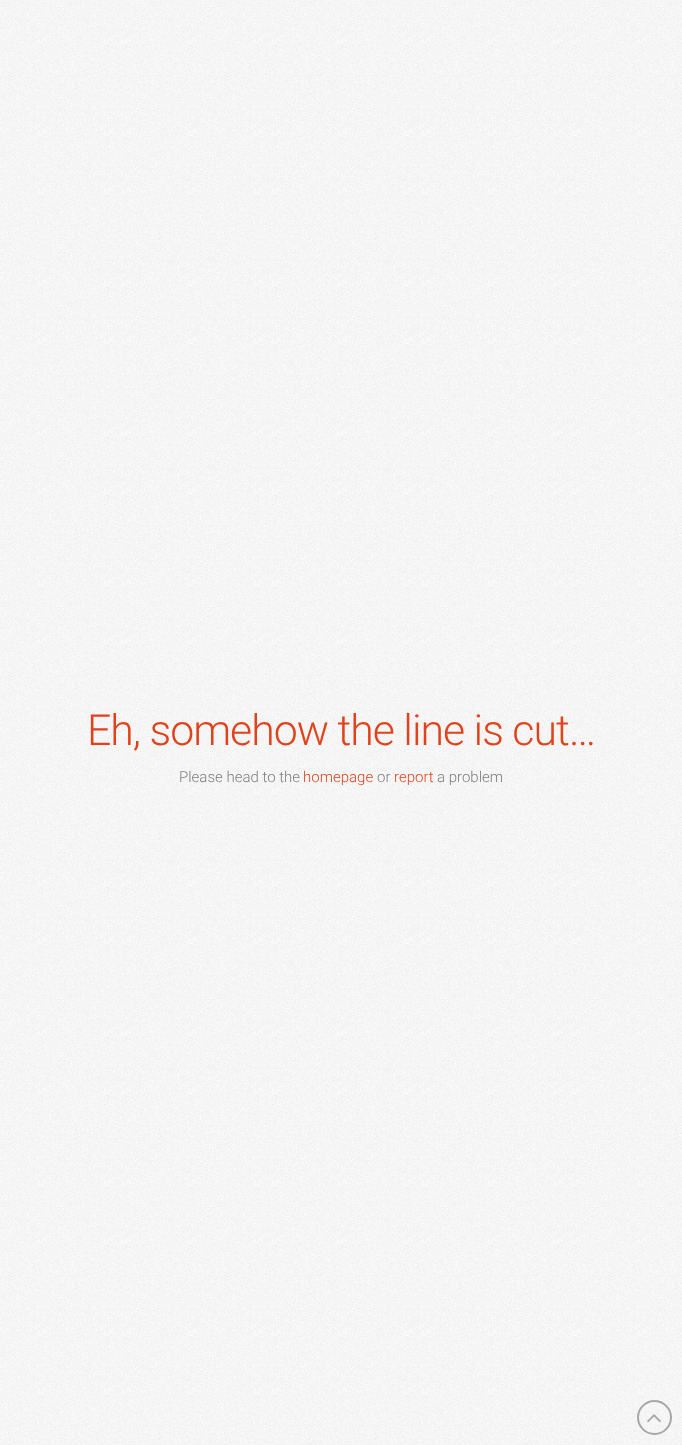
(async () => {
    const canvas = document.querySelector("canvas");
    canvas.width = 682;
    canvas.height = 1445;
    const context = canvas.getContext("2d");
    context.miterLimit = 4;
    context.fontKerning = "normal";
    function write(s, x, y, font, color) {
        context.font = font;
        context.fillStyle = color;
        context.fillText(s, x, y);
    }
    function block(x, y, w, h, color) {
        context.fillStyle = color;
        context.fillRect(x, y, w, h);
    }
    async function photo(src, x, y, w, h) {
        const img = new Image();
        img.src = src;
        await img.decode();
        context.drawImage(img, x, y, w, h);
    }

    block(0, 0, 682, 1445, "rgb(255, 255, 255)");
    await photo("media/1.png", 0, 0, 682, 1445);
    context.letterSpacing = "-1px";
    write("Eh, somehow the line is cut…", 87, 745, "300 42.8px Roboto", "rgb(224, 66, 27)");
    context.letterSpacing = "0px";
    write("Please head to the", 179, 782, "300 15px Roboto", "rgb(124, 125, 127)");
    write("homepage", 303, 782, "300 15px Roboto", "rgb(224, 66, 27)");
    write("or", 377, 782, "300 15px Roboto", "rgb(124, 125, 127)");
    write("report", 394, 782, "300 15px Roboto", "rgb(224, 66, 27)");
    write("a problem", 437, 782, "300 15px Roboto", "rgb(124, 125, 127)");
    context.beginPath();
    context.arc(654.5, 1417.5, 16.5, 0, Math.PI * 2);
    context.strokeStyle = "rgba(39, 39, 39, 0.38)";
    context.lineWidth = 2;
    context.stroke();
    await photo("media/2.png", 647, 1414, 14, 9);
})();
